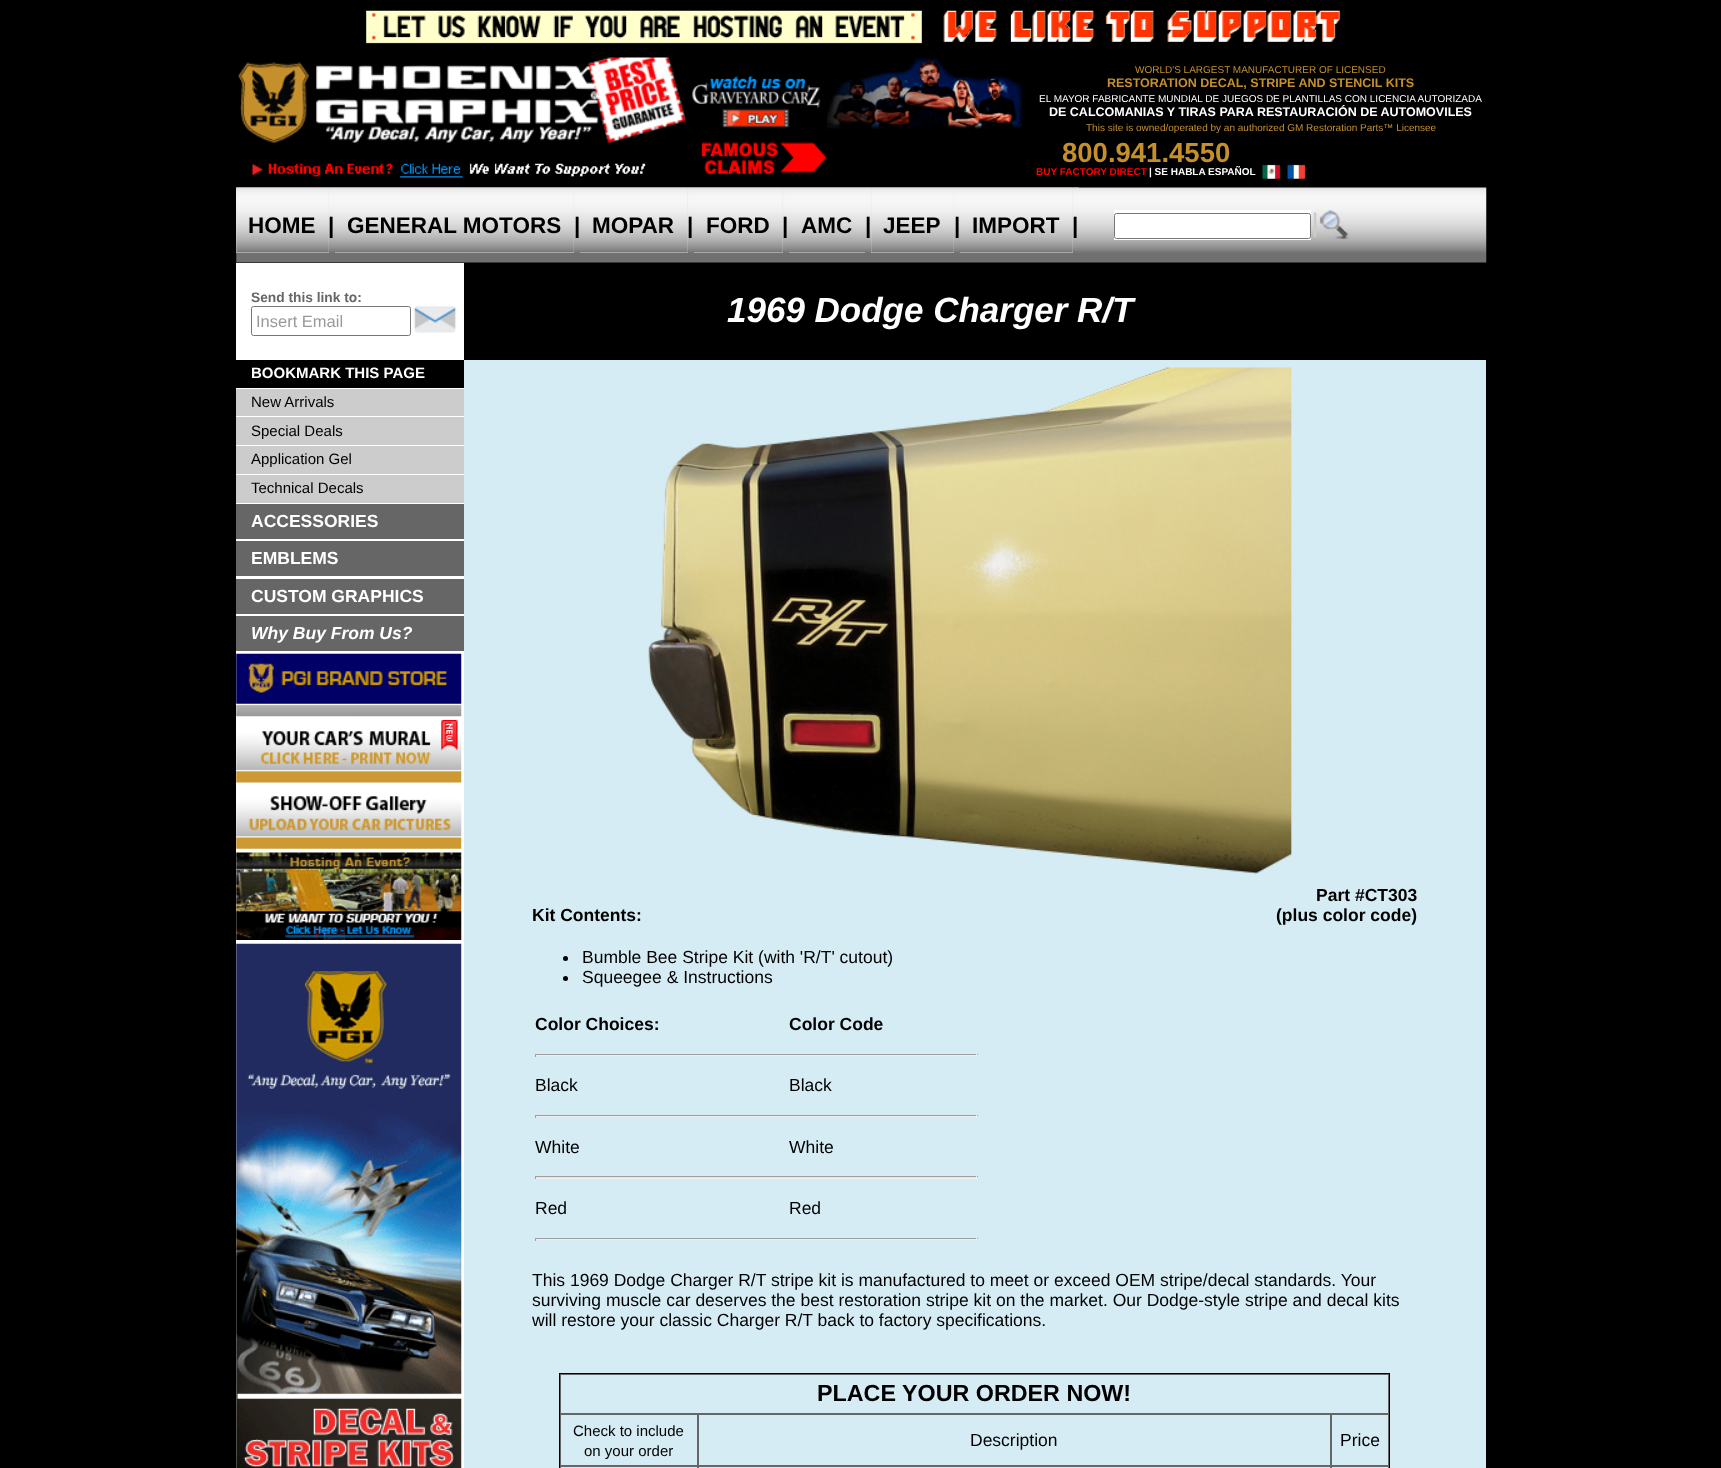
(async () => {
    const canvas = document.querySelector("canvas");
    canvas.width = 1721;
    canvas.height = 1468;
    const context = canvas.getContext("2d");
    context.miterLimit = 4;
    context.fontKerning = "normal";
    function write(s, x, y, font, color) {
        context.font = font;
        context.fillStyle = color;
        context.fillText(s, x, y);
    }
    function block(x, y, w, h, color) {
        context.fillStyle = color;
        context.fillRect(x, y, w, h);
    }
    async function photo(src, x, y, w, h) {
        const img = new Image();
        img.src = src;
        await img.decode();
        context.drawImage(img, x, y, w, h);
    }

    block(0, 0, 1721, 1468, "rgb(0, 0, 0)");
    await photo("media/1.png", 366, 10, 974, 34);
    await photo("media/2.png", 238, 57, 447, 87);
    await photo("media/3.png", 252, 163, 394, 15);
    await photo("media/4.png", 691, 57, 332, 72);
    await photo("media/5.png", 701, 142, 126, 33);
    write("WORLD'S LARGEST MANUFACTURER OF LICENSED", 1135, 73, "10px Liberation Sans", "rgb(197, 144, 44)");
    write("RESTORATION DECAL, STRIPE AND STENCIL KITS", 1107, 87, "bold 12.5px Liberation Sans", "rgb(197, 144, 44)");
    write("EL MAYOR FABRICANTE MUNDIAL DE JUEGOS DE PLANTILLAS CON LICENCIA AUTORIZADA", 1039, 102, "10px Liberation Sans", "rgb(255, 255, 255)");
    write("DE CALCOMANIAS Y TIRAS PARA RESTAURACIÓN DE AUTOMOVILES", 1049, 116, "bold 12.5px Liberation Sans", "rgb(255, 255, 255)");
    write("This site is owned/operated by an authorized GM Restoration Parts™ Licensee", 1086, 131, "10px Liberation Sans", "rgb(197, 144, 44)");
    write("800.941.4550", 1062, 162, "bold 27.5px Liberation Sans", "rgb(197, 144, 44)");
    write("BUY FACTORY DIRECT", 1036, 175, "bold 10px Liberation Sans", "rgb(255, 0, 0)");
    write("| SE HABLA ESPAÑOL", 1149, 175, "bold 10px Liberation Sans", "rgb(255, 255, 255)");
    await photo("media/6.png", 1262, 164, 19, 15);
    await photo("media/7.png", 1287, 164, 19, 15);
    await photo("media/8.png", 236, 187, 1251, 76);
    block(236, 188, 93, 65, "rgb(221, 221, 221)");
    await photo("media/9.png", 236, 187, 93, 66);
    write("HOME", 248, 233, "bold 22.5px Liberation Sans", "rgb(0, 0, 0)");
    await photo("media/10.png", 328, 187, 7, 66);
    write("|", 328, 233, "bold 22.5px Liberation Sans", "rgb(0, 0, 0)");
    block(335, 188, 239, 65, "rgb(221, 221, 221)");
    await photo("media/11.png", 335, 187, 239, 66);
    write("GENERAL MOTORS", 347, 233, "bold 22.5px Liberation Sans", "rgb(0, 0, 0)");
    await photo("media/10.png", 573, 187, 7, 66);
    write("|", 574, 233, "bold 22.5px Liberation Sans", "rgb(0, 0, 0)");
    block(580, 188, 108, 65, "rgb(221, 221, 221)");
    await photo("media/12.png", 580, 187, 108, 66);
    write("MOPAR", 592, 233, "bold 22.5px Liberation Sans", "rgb(0, 0, 0)");
    await photo("media/13.png", 687, 187, 7, 66);
    write("|", 687, 233, "bold 22.5px Liberation Sans", "rgb(0, 0, 0)");
    block(694, 188, 89, 65, "rgb(221, 221, 221)");
    await photo("media/14.png", 693, 187, 90, 66);
    write("FORD", 706, 233, "bold 22.5px Liberation Sans", "rgb(0, 0, 0)");
    await photo("media/13.png", 782, 187, 7, 66);
    write("|", 782, 233, "bold 22.5px Liberation Sans", "rgb(0, 0, 0)");
    block(789, 252, 76, 1, "rgb(221, 221, 221)");
    await photo("media/15.png", 788, 187, 77, 66);
    write("AMC", 801, 233, "bold 22.5px Liberation Sans", "rgb(0, 0, 0)");
    await photo("media/16.png", 865, 187, 7, 1);
    write("|", 865, 233, "bold 22.5px Liberation Sans", "rgb(0, 0, 0)");
    block(871, 188, 83, 65, "rgb(221, 221, 221)");
    await photo("media/17.png", 871, 187, 83, 66);
    write("JEEP", 883, 233, "bold 22.5px Liberation Sans", "rgb(0, 0, 0)");
    await photo("media/10.png", 953, 187, 7, 66);
    write("|", 954, 233, "bold 22.5px Liberation Sans", "rgb(0, 0, 0)");
    block(960, 188, 113, 65, "rgb(221, 221, 221)");
    await photo("media/18.png", 960, 187, 113, 66);
    write("IMPORT", 972, 233, "bold 22.5px Liberation Sans", "rgb(0, 0, 0)");
    await photo("media/13.png", 1072, 187, 7, 66);
    write("|", 1072, 233, "bold 22.5px Liberation Sans", "rgb(0, 0, 0)");
    block(1114, 210, 197, 30, "rgb(255, 255, 255)");
    context.beginPath();
    context.roundRect(1114.5, 213.5, 196, 25, 2);
    context.strokeStyle = "rgb(118, 118, 118)";
    context.stroke();
    await photo("media/19.png", 1313, 210, 36, 29);
    block(236, 263, 228, 97, "rgb(255, 255, 255)");
    write("Send this link to:", 251, 302, "bold 13.75px Liberation Sans", "rgb(102, 102, 102)");
    context.beginPath();
    context.roundRect(251.5, 306.5, 159, 29, 2);
    context.stroke();
    write("Insert Email", 256, 327, "16.5px Liberation Sans", "rgb(153, 153, 153)");
    await photo("media/20.png", 413, 306, 44, 27);
    write("1969 Dodge Charger R/T", 727, 322, "italic bold 35px Liberation Sans", "rgb(255, 255, 255)");
    block(464, 360, 1022, 1108, "rgb(213, 236, 244)");
    block(236, 388, 228, 1, "rgb(255, 255, 255)");
    write("BOOKMARK THIS PAGE", 251, 378, "bold 15px Liberation Sans", "rgb(255, 255, 255)");
    block(236, 389, 228, 56, "rgb(204, 204, 204)");
    block(236, 416, 228, 1, "rgb(255, 255, 255)");
    write("New Arrivals", 251, 407, "15px Liberation Sans", "rgb(0, 0, 0)");
    block(236, 445, 228, 1, "rgb(255, 255, 255)");
    write("Special Deals", 251, 436, "15px Liberation Sans", "rgb(0, 0, 0)");
    block(236, 446, 228, 28, "rgb(204, 204, 204)");
    block(236, 474, 228, 1, "rgb(255, 255, 255)");
    write("Application Gel", 251, 464, "15px Liberation Sans", "rgb(0, 0, 0)");
    block(236, 475, 228, 28, "rgb(204, 204, 204)");
    block(236, 503, 228, 1, "rgb(255, 255, 255)");
    write("Technical Decals", 251, 493, "15px Liberation Sans", "rgb(0, 0, 0)");
    block(236, 504, 228, 35, "rgb(102, 102, 102)");
    block(236, 539, 228, 2, "rgb(255, 255, 255)");
    write("ACCESSORIES", 251, 527, "bold 17.5px Liberation Sans", "rgb(255, 255, 255)");
    block(236, 541, 228, 35, "rgb(102, 102, 102)");
    block(236, 576, 228, 3, "rgb(255, 255, 255)");
    write("EMBLEMS", 251, 564, "bold 17.5px Liberation Sans", "rgb(255, 255, 255)");
    block(236, 579, 228, 35, "rgb(102, 102, 102)");
    block(236, 614, 228, 2, "rgb(255, 255, 255)");
    write("CUSTOM GRAPHICS", 251, 602, "bold 17.5px Liberation Sans", "rgb(255, 255, 255)");
    block(236, 616, 228, 35, "rgb(102, 102, 102)");
    block(236, 651, 228, 817, "rgb(255, 255, 255)");
    write("Why Buy From Us?", 251, 639, "italic bold 17.5px Liberation Sans", "rgb(255, 255, 255)");
    await photo("media/21.png", 236, 653, 226, 64);
    await photo("media/22.png", 236, 720, 226, 63);
    await photo("media/23.png", 236, 796, 226, 53);
    await photo("media/24.png", 236, 852, 226, 88);
    await photo("media/25.png", 236, 943, 226, 525);
    await photo("media/26.png", 648, 367, 644, 507);
    write("Kit Contents:", 532, 921, "bold 17.5px Liberation Sans", "rgb(0, 0, 0)");
    write("Part #CT303", 1316, 901, "bold 17.5px Liberation Sans", "rgb(0, 0, 0)");
    write("(plus color code)", 1276, 921, "bold 17.5px Liberation Sans", "rgb(0, 0, 0)");
    context.beginPath();
    context.arc(565.5, 958.5, 2.5, 0, Math.PI * 2);
    context.fill();
    write("Bumble Bee Stripe Kit (with 'R/T' cutout)", 582, 963, "17.5px Liberation Sans", "rgb(0, 0, 0)");
    context.beginPath();
    context.arc(565.5, 978.5, 2.5, 0, Math.PI * 2);
    context.fill();
    write("Squeegee & Instructions", 582, 983, "17.5px Liberation Sans", "rgb(0, 0, 0)");
    write("Color Choices:", 535, 1030, "bold 17.5px Liberation Sans", "rgb(0, 0, 0)");
    write("Color Code", 789, 1030, "bold 17.5px Liberation Sans", "rgb(0, 0, 0)");
    block(535, 1054, 443, 1, "rgb(159, 159, 159)");
    block(976, 1054, 1, 3, "rgb(238, 238, 238)");
    block(535, 1055, 443, 1, "rgb(238, 238, 238)");
    block(535, 1054, 1, 3, "rgb(159, 159, 159)");
    write("Black", 535, 1091, "17.5px Liberation Sans", "rgb(0, 0, 0)");
    write("Black", 789, 1091, "17.5px Liberation Sans", "rgb(0, 0, 0)");
    block(535, 1115, 443, 1, "rgb(159, 159, 159)");
    block(976, 1115, 1, 3, "rgb(238, 238, 238)");
    block(535, 1116, 443, 1, "rgb(238, 238, 238)");
    block(535, 1115, 1, 3, "rgb(159, 159, 159)");
    write("White", 535, 1153, "17.5px Liberation Sans", "rgb(0, 0, 0)");
    write("White", 789, 1153, "17.5px Liberation Sans", "rgb(0, 0, 0)");
    block(535, 1176, 443, 1, "rgb(159, 159, 159)");
    block(976, 1176, 1, 3, "rgb(238, 238, 238)");
    block(535, 1178, 443, 1, "rgb(238, 238, 238)");
    block(535, 1176, 1, 3, "rgb(159, 159, 159)");
    write("Red", 535, 1214, "17.5px Liberation Sans", "rgb(0, 0, 0)");
    write("Red", 789, 1214, "17.5px Liberation Sans", "rgb(0, 0, 0)");
    block(535, 1238, 443, 1, "rgb(159, 159, 159)");
    block(976, 1238, 1, 3, "rgb(238, 238, 238)");
    block(535, 1239, 443, 1, "rgb(238, 238, 238)");
    block(535, 1238, 1, 3, "rgb(159, 159, 159)");
    write("This 1969 Dodge Charger R/T stripe kit is manufactured to meet or exceed OEM stripe/decal standards. Your", 532, 1286, "17.5px Liberation Sans", "rgb(0, 0, 0)");
    write("surviving muscle car deserves the best restoration stripe kit on the market. Our Dodge-style stripe and decal kits", 532, 1306, "17.5px Liberation Sans", "rgb(0, 0, 0)");
    write("will restore your classic Charger R/T back to factory specifications.", 532, 1326, "17.5px Liberation Sans", "rgb(0, 0, 0)");
    context.strokeStyle = "rgb(0, 0, 0)";
    context.strokeRect(559.5, 1373.5, 830, 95);
    context.strokeStyle = "rgb(102, 102, 102)";
    context.strokeRect(560.5, 1374.5, 828, 39);
    write("PLACE YOUR ORDER NOW!", 817, 1401, "bold 23.3px Liberation Sans", "rgb(0, 0, 0)");
    context.strokeRect(560.5, 1414.5, 137, 51);
    write("Check to include", 573, 1436, "15px Liberation Sans", "rgb(0, 0, 0)");
    write("on your order", 584, 1456, "15px Liberation Sans", "rgb(0, 0, 0)");
    context.strokeRect(698.5, 1414.5, 632, 51);
    write("Description", 970, 1446, "17.5px Liberation Sans", "rgb(0, 0, 0)");
    context.strokeRect(1331.5, 1414.5, 57, 51);
    write("Price", 1340, 1446, "17.5px Liberation Sans", "rgb(0, 0, 0)");
    context.strokeRect(560.5, 1466.5, 137, 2);
    context.strokeRect(698.5, 1466.5, 632, 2);
    context.strokeRect(1331.5, 1466.5, 57, 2);
})();
